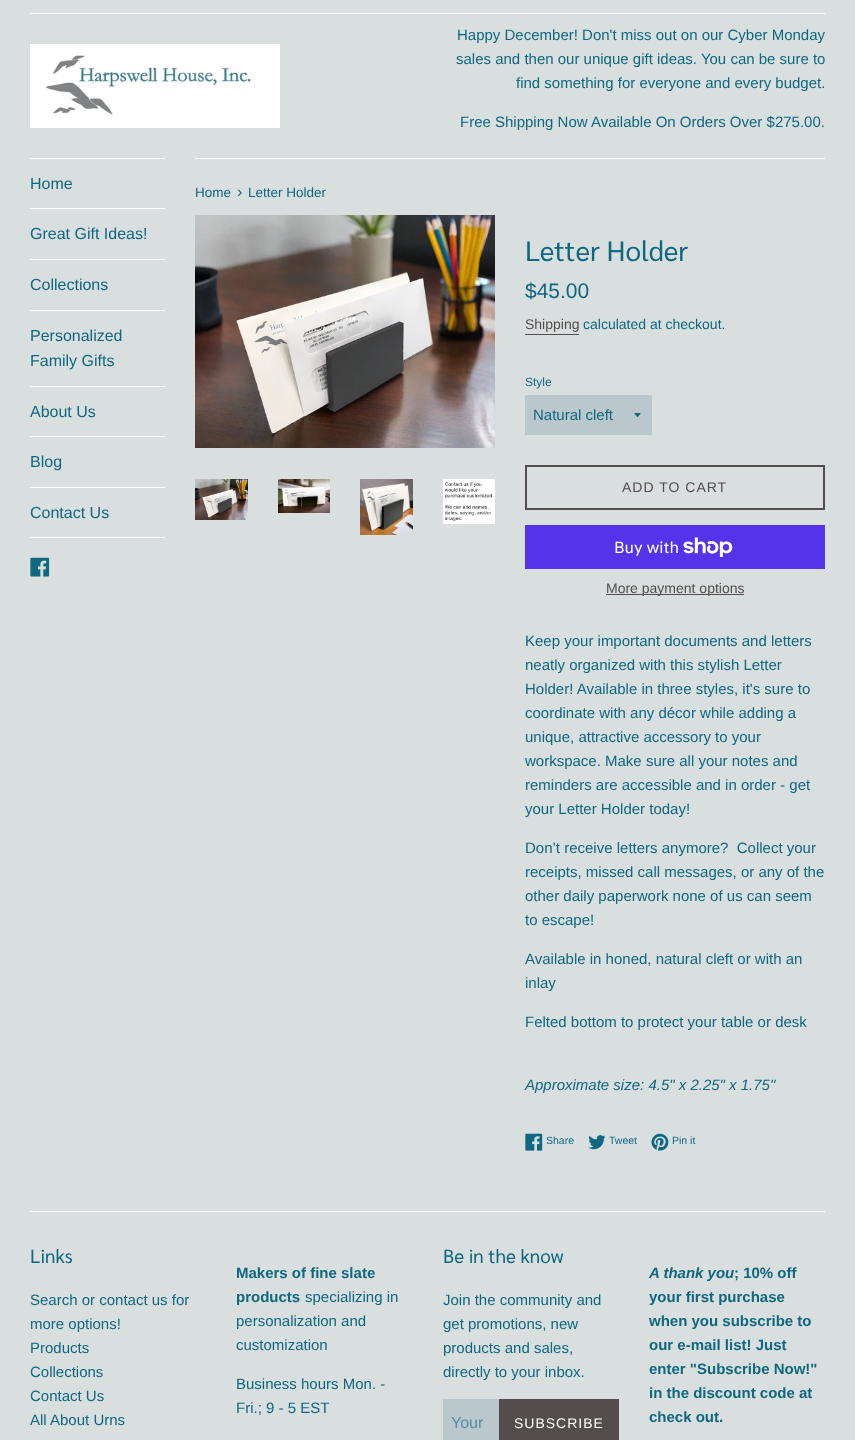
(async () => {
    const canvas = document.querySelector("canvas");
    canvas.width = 855;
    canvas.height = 1440;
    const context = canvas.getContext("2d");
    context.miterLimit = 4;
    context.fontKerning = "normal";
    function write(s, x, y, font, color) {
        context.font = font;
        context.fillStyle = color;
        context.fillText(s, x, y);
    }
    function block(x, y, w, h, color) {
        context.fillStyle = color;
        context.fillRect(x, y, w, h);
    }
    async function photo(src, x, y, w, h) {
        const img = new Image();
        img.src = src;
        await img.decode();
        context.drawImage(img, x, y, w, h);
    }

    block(0, 0, 855, 1440, "rgb(217, 223, 223)");
    block(30, 13, 795, 1, "rgb(255, 255, 255)");
    await photo("media/1.png", 30, 44, 250, 84);
    write("Happy December! Don't miss out on our Cyber Monday", 457, 40, "15px Liberation Sans", "rgb(15, 103, 128)");
    write("sales and then our unique gift ideas. You can be sure to", 456, 64, "15px Liberation Sans", "rgb(15, 103, 128)");
    write("find something for everyone and every budget.", 516, 88, "15px Liberation Sans", "rgb(15, 103, 128)");
    write("Free Shipping Now Available On Orders Over $275.00.", 460, 127, "15px Liberation Sans", "rgb(15, 103, 128)");
    block(30, 158, 135, 1, "rgb(255, 255, 255)");
    block(30, 208, 135, 1, "rgb(255, 255, 255)");
    write("Home", 30, 189, "16px Liberation Sans", "rgb(15, 103, 128)");
    block(30, 259, 135, 1, "rgb(255, 255, 255)");
    write("Great Gift Ideas!", 30, 239, "16px Liberation Sans", "rgb(15, 103, 128)");
    block(30, 310, 135, 1, "rgb(255, 255, 255)");
    write("Collections", 30, 290, "16px Liberation Sans", "rgb(15, 103, 128)");
    block(30, 386, 135, 1, "rgb(255, 255, 255)");
    write("Personalized", 30, 341, "16px Liberation Sans", "rgb(15, 103, 128)");
    write("Family Gifts", 30, 366, "16px Liberation Sans", "rgb(15, 103, 128)");
    block(30, 436, 135, 1, "rgb(255, 255, 255)");
    write("About Us", 30, 417, "16px Liberation Sans", "rgb(15, 103, 128)");
    block(30, 487, 135, 1, "rgb(255, 255, 255)");
    write("Blog", 30, 467, "16px Liberation Sans", "rgb(15, 103, 128)");
    block(30, 537, 135, 1, "rgb(255, 255, 255)");
    write("Contact Us", 30, 518, "16px Liberation Sans", "rgb(15, 103, 128)");
    await photo("media/2.png", 30, 557, 20, 20);
    block(195, 158, 630, 1, "rgb(255, 255, 255)");
    write("Home", 195, 197, "13.5px Liberation Sans", "rgb(15, 103, 128)");
    write("›", 237, 197, "16px Liberation Sans", "rgb(15, 103, 128)");
    write("Letter Holder", 248, 197, "13.5px Liberation Sans", "rgb(15, 103, 128)");
    await photo("media/3.png", 195, 215, 300, 233);
    await photo("media/4.png", 195, 479, 53, 41);
    await photo("media/5.png", 278, 479, 52, 34);
    await photo("media/6.png", 360, 479, 53, 56);
    await photo("media/7.png", 443, 479, 52, 45);
    write("Letter Holder", 525, 261, "28px Sarabun", "rgb(15, 103, 128)");
    write("$45.00", 525, 298, "21px Liberation Sans", "rgb(15, 103, 128)");
    write("Shipping", 525, 329, "14px Liberation Sans", "rgb(83, 77, 77)");
    block(525, 334, 54, 1, "rgb(83, 77, 77)");
    write("calculated at checkout.", 583, 329, "14px Liberation Sans", "rgb(15, 103, 128)");
    write("Style", 525, 386, "12px Liberation Sans", "rgb(15, 103, 128)");
    block(525, 395, 127, 40, "rgb(186, 200, 205)");
    context.fillStyle = "rgb(15, 103, 128)";
    context.beginPath();
    context.moveTo(634, 413);
    context.bezierCurveTo(638.5, 418.5, 636.5, 418.5, 641, 413);
    context.closePath();
    context.fill();
    write("Natural cleft", 533, 420, "15px Liberation Sans", "rgb(15, 103, 128)");
    context.strokeStyle = "rgb(83, 77, 77)";
    context.lineWidth = 2;
    context.strokeRect(526, 466, 298, 43);
    context.letterSpacing = "1px";
    write("ADD TO CART", 622, 492, "14px Liberation Sans", "rgb(83, 77, 77)");
    block(525, 525, 300, 44, "rgb(84, 51, 235)");
    context.letterSpacing = "0px";
    write("Buy with", 614, 553, "16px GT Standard", "rgb(255, 255, 255)");
    await photo("media/8.png", 683, 537, 50, 20);
    block(606, 594, 138, 1, "rgb(83, 77, 77)");
    write("More payment options", 606, 593, "14px Liberation Sans", "rgb(83, 77, 77)");
    write("Keep your important documents and letters", 525, 646, "15px Liberation Sans", "rgb(15, 103, 128)");
    write("neatly organized with this stylish Letter", 525, 670, "15px Liberation Sans", "rgb(15, 103, 128)");
    write("Holder! Available in three styles, it's sure to", 525, 694, "15px Liberation Sans", "rgb(15, 103, 128)");
    write("coordinate with any décor while adding a", 525, 718, "15px Liberation Sans", "rgb(15, 103, 128)");
    write("unique, attractive accessory to your", 525, 742, "15px Liberation Sans", "rgb(15, 103, 128)");
    write("workspace. Make sure all your notes and", 525, 766, "15px Liberation Sans", "rgb(15, 103, 128)");
    write("reminders are accessible and in order - get", 525, 790, "15px Liberation Sans", "rgb(15, 103, 128)");
    write("your Letter Holder today!", 525, 814, "15px Liberation Sans", "rgb(15, 103, 128)");
    write("Don’t receive letters anymore?  Collect your", 525, 853, "15px Liberation Sans", "rgb(15, 103, 128)");
    write("receipts, missed call messages, or any of the", 525, 877, "15px Liberation Sans", "rgb(15, 103, 128)");
    write("other daily paperwork none of us can seem", 525, 901, "15px Liberation Sans", "rgb(15, 103, 128)");
    write("to escape!", 525, 925, "15px Liberation Sans", "rgb(15, 103, 128)");
    write("Available in honed, natural cleft or with an", 525, 964, "15px Liberation Sans", "rgb(15, 103, 128)");
    write("inlay", 525, 988, "15px Liberation Sans", "rgb(15, 103, 128)");
    write("Felted bottom to protect your table or desk", 525, 1027, "15px Liberation Sans", "rgb(15, 103, 128)");
    write("Approximate size: 4.5\" x 2.25\" x 1.75\"", 525, 1090, "italic 15px Liberation Sans", "rgb(15, 103, 128)");
    await photo("media/9.png", 525, 1133, 18, 18);
    write("Share", 546, 1144, "10.5px Liberation Sans", "rgb(15, 103, 128)");
    await photo("media/10.png", 588, 1135, 18, 15);
    write("Tweet", 609, 1144, "10.5px Liberation Sans", "rgb(15, 103, 128)");
    await photo("media/11.png", 651, 1133, 18, 18);
    write("Pin it", 672, 1144, "10.5px Liberation Sans", "rgb(15, 103, 128)");
    block(30, 1211, 795, 1, "rgb(255, 255, 255)");
    write("Links", 30, 1263, "19px Sarabun", "rgb(15, 103, 128)");
    write("Search or contact us for", 30, 1305, "15px Liberation Sans", "rgb(15, 103, 128)");
    write("more options!", 30, 1329, "15px Liberation Sans", "rgb(15, 103, 128)");
    write("Products", 30, 1353, "15px Liberation Sans", "rgb(15, 103, 128)");
    write("Collections", 30, 1377, "15px Liberation Sans", "rgb(15, 103, 128)");
    write("Contact Us", 30, 1401, "15px Liberation Sans", "rgb(15, 103, 128)");
    write("All About Urns", 30, 1425, "15px Liberation Sans", "rgb(15, 103, 128)");
    write("Makers of fine slate", 236, 1278, "bold 15px Liberation Sans", "rgb(15, 103, 128)");
    write("products", 236, 1302, "bold 15px Liberation Sans", "rgb(15, 103, 128)");
    write("specializing in", 305, 1302, "15px Liberation Sans", "rgb(15, 103, 128)");
    write("personalization and", 236, 1326, "15px Liberation Sans", "rgb(15, 103, 128)");
    write("customization", 236, 1350, "15px Liberation Sans", "rgb(15, 103, 128)");
    write("Business hours Mon. -", 236, 1389, "15px Liberation Sans", "rgb(15, 103, 128)");
    write("Fri.; 9 - 5 EST", 236, 1413, "15px Liberation Sans", "rgb(15, 103, 128)");
    write("Be in the know", 443, 1263, "19px Sarabun", "rgb(15, 103, 128)");
    write("Join the community and", 443, 1305, "15px Liberation Sans", "rgb(15, 103, 128)");
    write("get promotions, new", 443, 1329, "15px Liberation Sans", "rgb(15, 103, 128)");
    write("products and sales,", 443, 1353, "15px Liberation Sans", "rgb(15, 103, 128)");
    write("directly to your inbox.", 443, 1377, "15px Liberation Sans", "rgb(15, 103, 128)");
    block(443, 1399, 56, 41, "rgb(186, 200, 205)");
    write("Your", 451, 1428, "16px Liberation Sans", "rgb(83, 142, 159)");
    block(499, 1399, 120, 41, "rgb(83, 77, 77)");
    context.letterSpacing = "1px";
    write("SUBSCRIBE", 514, 1428, "14px Liberation Sans", "rgb(255, 255, 255)");
    context.letterSpacing = "0px";
    write("A thank you", 649, 1278, "italic bold 15px Liberation Sans", "rgb(15, 103, 128)");
    write("; 10% off", 734, 1278, "bold 15px Liberation Sans", "rgb(15, 103, 128)");
    write("your first purchase", 649, 1302, "bold 15px Liberation Sans", "rgb(15, 103, 128)");
    write("when you subscribe to", 649, 1326, "bold 15px Liberation Sans", "rgb(15, 103, 128)");
    write("our e-mail list! Just", 649, 1350, "bold 15px Liberation Sans", "rgb(15, 103, 128)");
    write("enter \"Subscribe Now!\"", 649, 1374, "bold 15px Liberation Sans", "rgb(15, 103, 128)");
    write("in the discount code at", 649, 1398, "bold 15px Liberation Sans", "rgb(15, 103, 128)");
    write("check out.", 649, 1422, "bold 15px Liberation Sans", "rgb(15, 103, 128)");
})();
